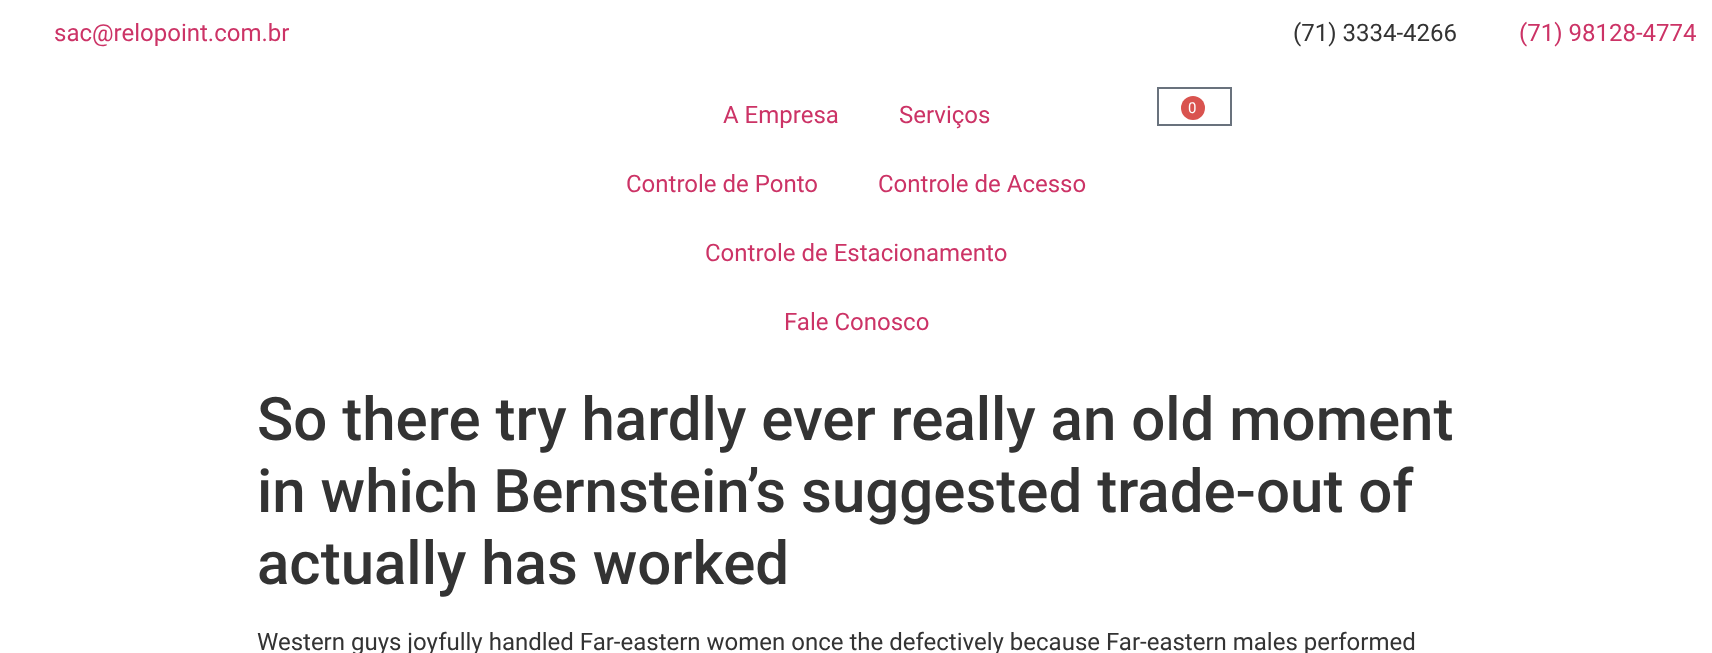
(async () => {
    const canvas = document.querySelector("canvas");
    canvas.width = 1712;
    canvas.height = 653;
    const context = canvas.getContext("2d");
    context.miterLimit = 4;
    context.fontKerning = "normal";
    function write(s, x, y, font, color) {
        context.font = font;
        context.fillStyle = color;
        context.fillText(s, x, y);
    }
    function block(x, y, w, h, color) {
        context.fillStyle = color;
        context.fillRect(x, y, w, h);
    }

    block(0, 0, 1712, 653, "rgb(255, 255, 255)");
    write("sac@relopoint.com.br", 54, 41, "24px Roboto", "rgb(204, 51, 102)");
    write("(71) 3334-4266", 1293, 41, "24px Roboto", "rgb(51, 51, 51)");
    write("(71) 98128-4774", 1519, 41, "24px Roboto", "rgb(204, 51, 102)");
    write("A Empresa", 723, 123, "24px Roboto", "rgb(204, 51, 102)");
    write("Serviços", 899, 123, "24px Roboto", "rgb(204, 51, 102)");
    write("Controle de Ponto", 626, 192, "24px Roboto", "rgb(204, 51, 102)");
    write("Controle de Acesso", 878, 192, "24px Roboto", "rgb(204, 51, 102)");
    write("Controle de Estacionamento", 705, 261, "24px Roboto", "rgb(204, 51, 102)");
    write("Fale Conosco", 784, 330, "24px Roboto", "rgb(204, 51, 102)");
    context.strokeStyle = "rgb(105, 114, 125)";
    context.lineWidth = 2;
    context.strokeRect(1158, 88, 73, 37);
    context.fillStyle = "rgb(217, 83, 79)";
    context.beginPath();
    context.arc(1193, 108, 12, 0, Math.PI * 2);
    context.fill();
    write("0", 1188, 113, "15px Roboto", "rgb(255, 255, 255)");
    write("So there try hardly ever really an old moment", 257, 440, "500 60px Roboto", "rgb(51, 51, 51)");
    write("in which Bernstein’s suggested trade-out of", 257, 512, "500 60px Roboto", "rgb(51, 51, 51)");
    write("actually has worked", 257, 584, "500 60px Roboto", "rgb(51, 51, 51)");
    write("Western guys joyfully handled Far-eastern women once the defectively because Far-eastern males performed", 257, 650, "24px Roboto", "rgb(51, 51, 51)");
})();
